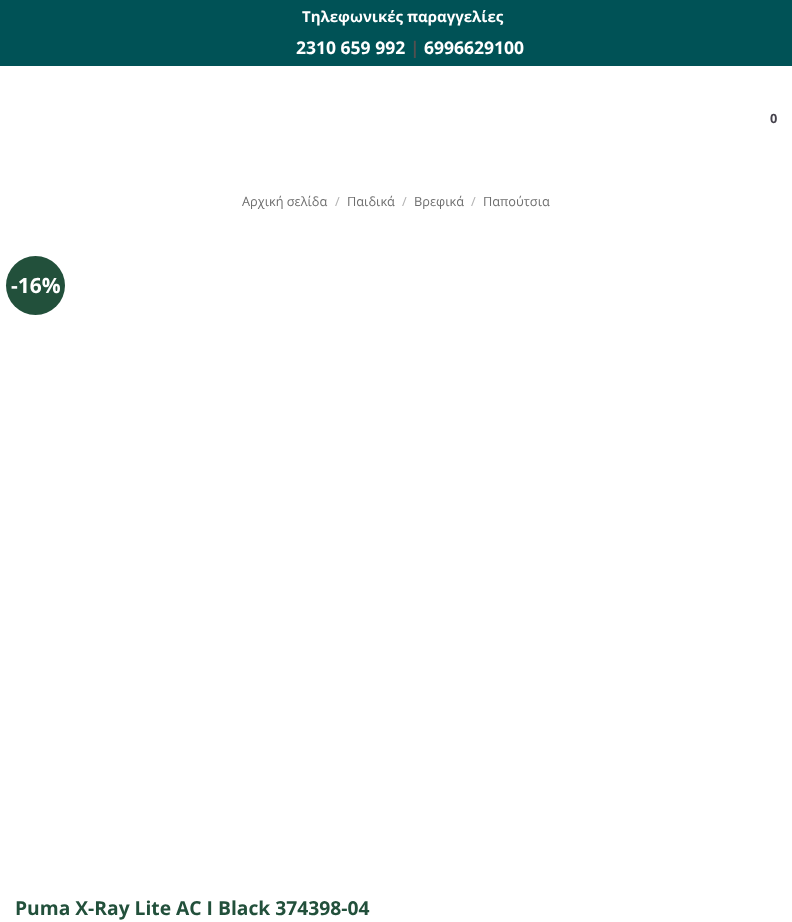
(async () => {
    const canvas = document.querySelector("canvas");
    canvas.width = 792;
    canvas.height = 922;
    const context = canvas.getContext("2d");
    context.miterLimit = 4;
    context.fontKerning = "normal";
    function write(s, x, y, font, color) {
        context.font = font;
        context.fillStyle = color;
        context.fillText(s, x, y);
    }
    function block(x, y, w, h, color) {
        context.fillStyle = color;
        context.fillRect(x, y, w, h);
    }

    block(0, 0, 792, 922, "rgb(255, 255, 255)");
    block(0, 0, 792, 66, "rgb(0, 82, 86)");
    write("Τηλεφωνικές παραγγελίες", 302, 22, "bold 15px Open Sans", "rgb(255, 255, 255)");
    write("2310 659 992", 296, 54, "bold 17.5px Open Sans", "rgb(255, 255, 255)");
    write("|", 410, 54, "bold 17.5px Open Sans", "rgb(82, 80, 80)");
    write("6996629100", 424, 54, "bold 17.5px Open Sans", "rgb(255, 255, 255)");
    write("0", 770, 123, "bold 12.75px Open Sans", "rgb(69, 66, 76)");
    write("Αρχική σελίδα", 242, 206, "12.75px Open Sans", "rgb(110, 110, 110)");
    write("/", 335, 206, "12.75px Open Sans", "rgb(178, 178, 178)");
    write("Παιδικά", 347, 206, "12.75px Open Sans", "rgb(110, 110, 110)");
    write("/", 402, 206, "12.75px Open Sans", "rgb(178, 178, 178)");
    write("Βρεφικά", 414, 206, "12.75px Open Sans", "rgb(110, 110, 110)");
    write("/", 471, 206, "12.75px Open Sans", "rgb(178, 178, 178)");
    write("Παπούτσια", 483, 206, "12.75px Open Sans", "rgb(110, 110, 110)");
    context.fillStyle = "rgb(34, 80, 59)";
    context.beginPath();
    context.arc(35.5, 285.5, 29.5, 0, Math.PI * 2);
    context.fill();
    write("-16%", 11, 293, "bold 21px Open Sans", "rgb(255, 255, 255)");
    write("Puma X-Ray Lite AC I Black 374398-04", 15, 915, "bold 19.25px Open Sans", "rgb(34, 80, 59)");
})();
